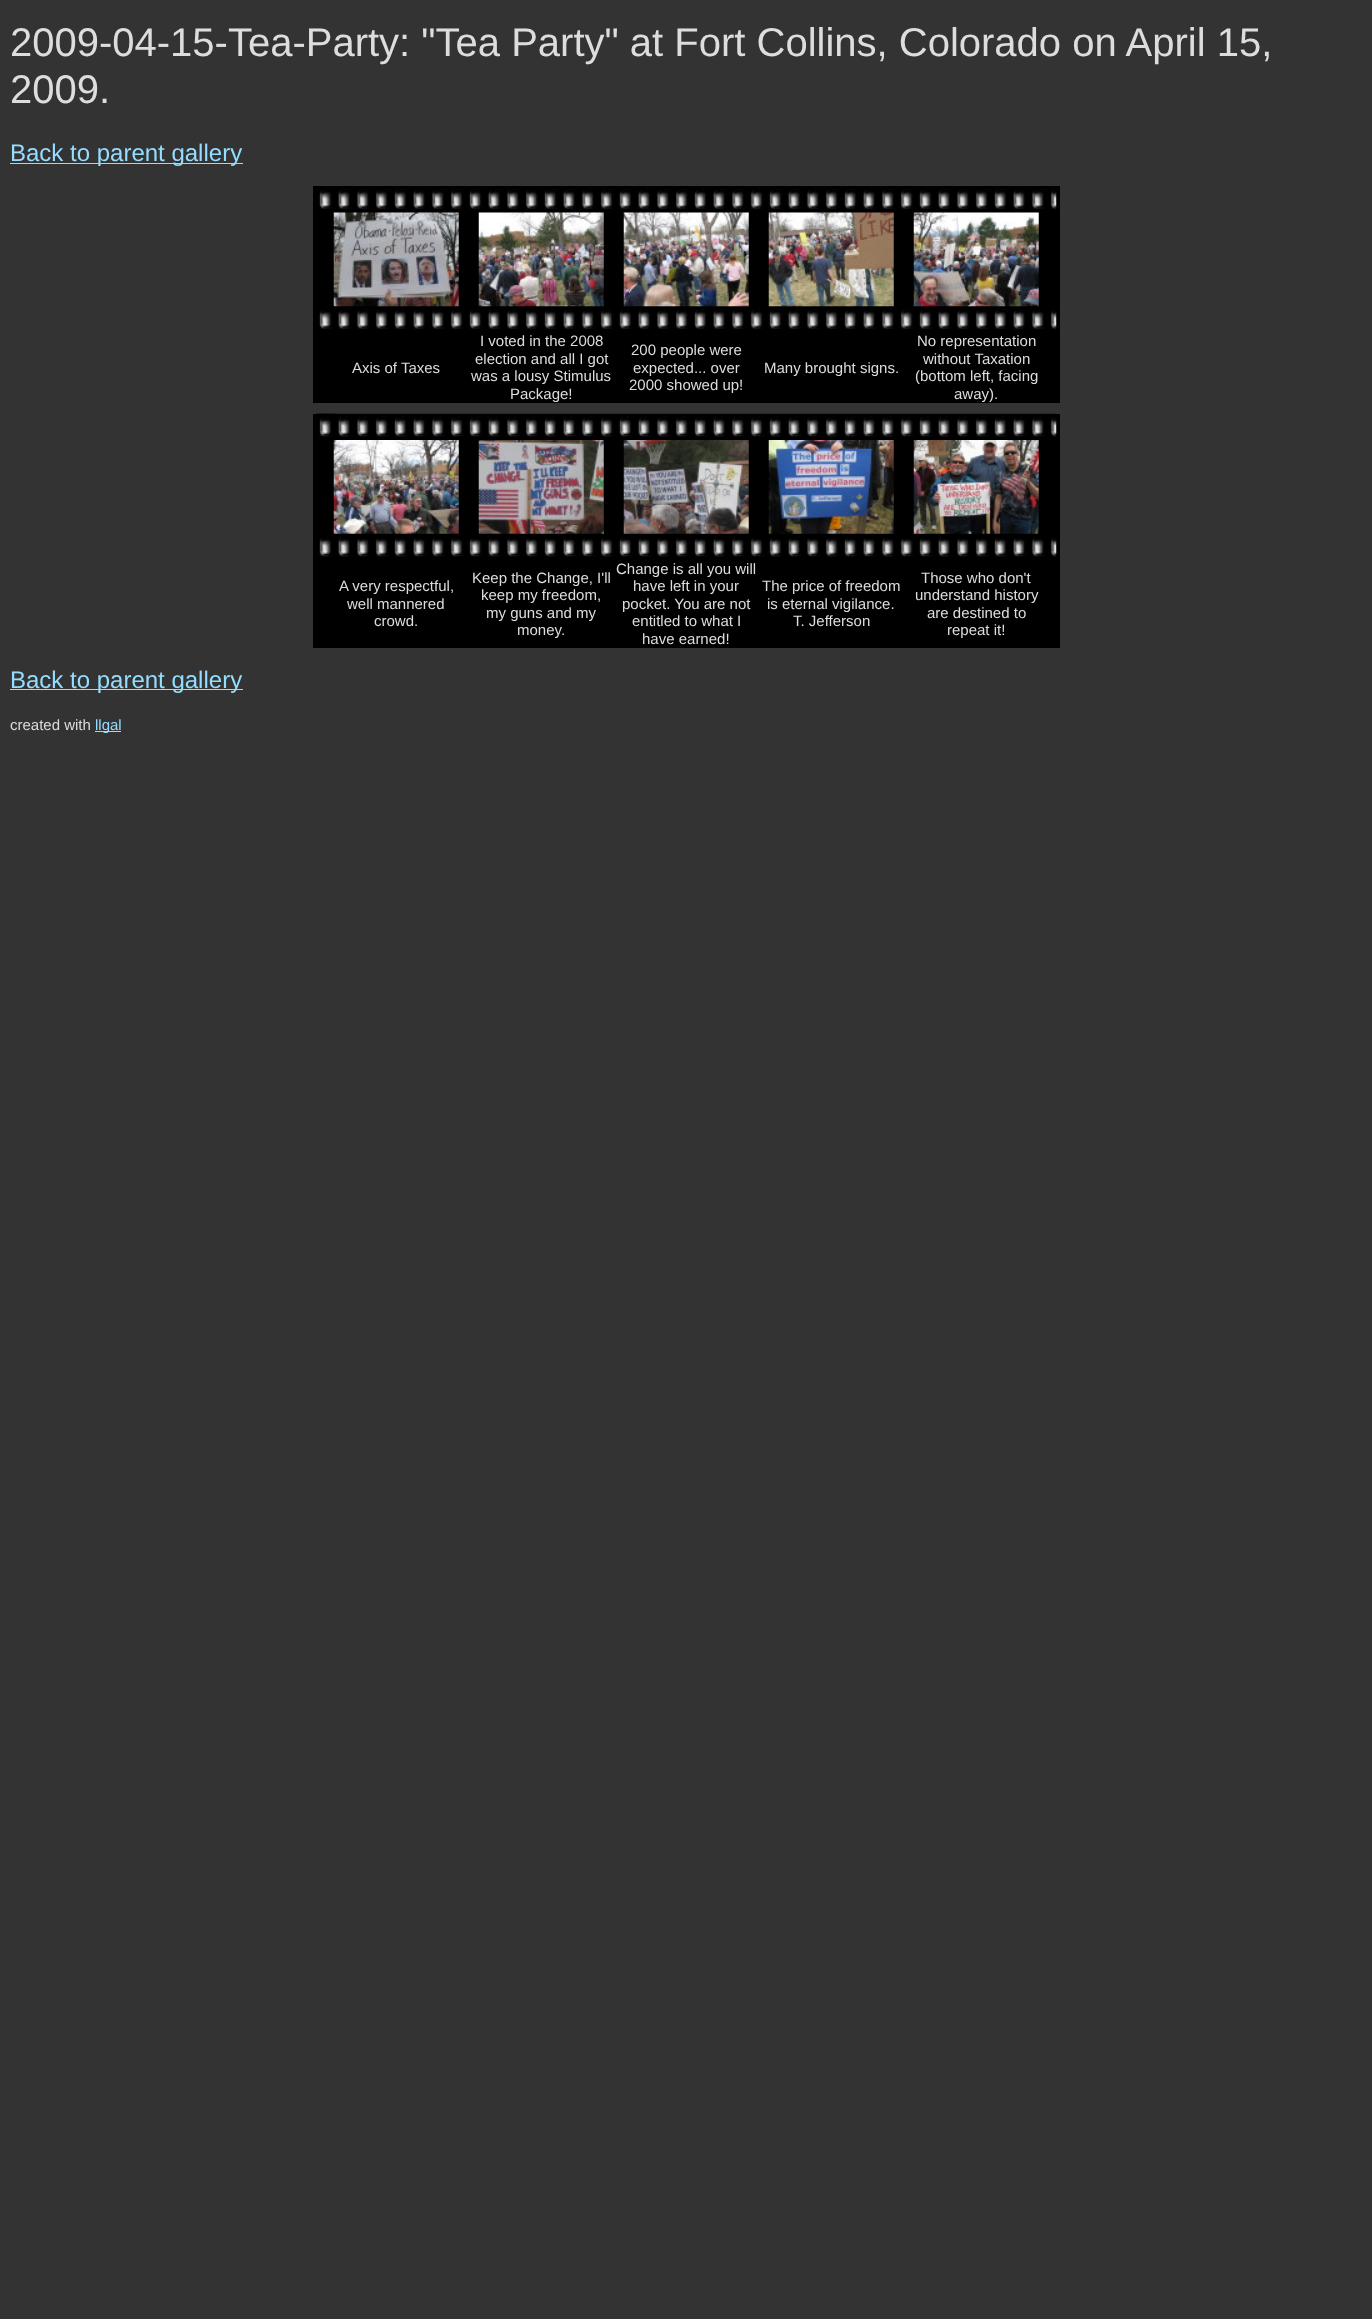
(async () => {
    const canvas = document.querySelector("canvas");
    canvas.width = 1372;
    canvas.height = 2319;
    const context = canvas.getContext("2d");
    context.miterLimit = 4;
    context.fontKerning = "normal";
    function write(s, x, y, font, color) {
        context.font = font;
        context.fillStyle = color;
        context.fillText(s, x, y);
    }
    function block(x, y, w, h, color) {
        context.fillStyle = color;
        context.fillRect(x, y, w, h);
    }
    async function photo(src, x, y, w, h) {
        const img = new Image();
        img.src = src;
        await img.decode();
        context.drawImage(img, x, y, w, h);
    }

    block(0, 0, 1372, 2319, "rgb(51, 51, 51)");
    write("2009-04-15-Tea-Party: \"Tea Party\" at Fort Collins, Colorado on April 15,", 10, 56, "40px Liberation Sans", "rgb(221, 221, 221)");
    write("2009.", 10, 103, "40px Liberation Sans", "rgb(221, 221, 221)");
    block(10, 163, 233, 1, "rgb(149, 221, 255)");
    write("Back to parent gallery", 10, 161, "24px Liberation Sans", "rgb(149, 221, 255)");
    block(313, 186, 747, 217, "rgb(0, 0, 0)");
    await photo("media/1.png", 319, 189, 738, 20);
    await photo("media/2.png", 333, 212, 126, 95);
    await photo("media/3.png", 478, 212, 126, 95);
    await photo("media/4.png", 623, 212, 126, 95);
    await photo("media/5.png", 768, 212, 126, 95);
    await photo("media/6.png", 913, 212, 126, 95);
    await photo("media/1.png", 319, 309, 738, 20);
    block(333, 306, 2, 1, "rgba(0, 0, 0, 0.75)");
    write("Axis of Taxes", 352, 373, "15px Liberation Sans", "rgb(221, 221, 221)");
    write("I voted in the 2008", 480, 346, "15px Liberation Sans", "rgb(221, 221, 221)");
    write("election and all I got", 475, 364, "15px Liberation Sans", "rgb(221, 221, 221)");
    write("was a lousy Stimulus", 471, 381, "15px Liberation Sans", "rgb(221, 221, 221)");
    write("Package!", 510, 399, "15px Liberation Sans", "rgb(221, 221, 221)");
    write("200 people were", 631, 355, "15px Liberation Sans", "rgb(221, 221, 221)");
    write("expected... over", 633, 373, "15px Liberation Sans", "rgb(221, 221, 221)");
    write("2000 showed up!", 629, 390, "15px Liberation Sans", "rgb(221, 221, 221)");
    write("Many brought signs.", 764, 373, "15px Liberation Sans", "rgb(221, 221, 221)");
    write("No representation", 917, 346, "15px Liberation Sans", "rgb(221, 221, 221)");
    write("without Taxation", 923, 364, "15px Liberation Sans", "rgb(221, 221, 221)");
    write("(bottom left, facing", 915, 381, "15px Liberation Sans", "rgb(221, 221, 221)");
    write("away).", 954, 399, "15px Liberation Sans", "rgb(221, 221, 221)");
    block(313, 414, 747, 234, "rgb(0, 0, 0)");
    await photo("media/7.png", 316, 413, 741, 24);
    await photo("media/8.png", 316, 413, 19, 21);
    await photo("media/9.png", 333, 440, 126, 94);
    await photo("media/10.png", 478, 440, 126, 94);
    await photo("media/11.png", 623, 440, 126, 94);
    await photo("media/12.png", 768, 440, 126, 94);
    await photo("media/13.png", 913, 440, 126, 94);
    await photo("media/14.png", 319, 538, 738, 19);
    await photo("media/15.png", 324, 533, 11, 21);
    write("A very respectful,", 339, 591, "15px Liberation Sans", "rgb(221, 221, 221)");
    write("well mannered", 347, 609, "15px Liberation Sans", "rgb(221, 221, 221)");
    write("crowd.", 374, 626, "15px Liberation Sans", "rgb(221, 221, 221)");
    write("Keep the Change, I'll", 472, 583, "15px Liberation Sans", "rgb(221, 221, 221)");
    write("keep my freedom,", 481, 600, "15px Liberation Sans", "rgb(221, 221, 221)");
    write("my guns and my", 486, 618, "15px Liberation Sans", "rgb(221, 221, 221)");
    write("money.", 517, 635, "15px Liberation Sans", "rgb(221, 221, 221)");
    write("Change is all you will", 616, 574, "15px Liberation Sans", "rgb(221, 221, 221)");
    write("have left in your", 633, 591, "15px Liberation Sans", "rgb(221, 221, 221)");
    write("pocket. You are not", 622, 609, "15px Liberation Sans", "rgb(221, 221, 221)");
    write("entitled to what I", 632, 626, "15px Liberation Sans", "rgb(221, 221, 221)");
    write("have earned!", 642, 644, "15px Liberation Sans", "rgb(221, 221, 221)");
    write("The price of freedom", 762, 591, "15px Liberation Sans", "rgb(221, 221, 221)");
    write("is eternal vigilance.", 767, 609, "15px Liberation Sans", "rgb(221, 221, 221)");
    write("T. Jefferson", 793, 626, "15px Liberation Sans", "rgb(221, 221, 221)");
    write("Those who don't", 921, 583, "15px Liberation Sans", "rgb(221, 221, 221)");
    write("understand history", 915, 600, "15px Liberation Sans", "rgb(221, 221, 221)");
    write("are destined to", 927, 618, "15px Liberation Sans", "rgb(221, 221, 221)");
    write("repeat it!", 947, 635, "15px Liberation Sans", "rgb(221, 221, 221)");
    block(10, 689, 233, 1, "rgb(149, 221, 255)");
    write("Back to parent gallery", 10, 688, "24px Liberation Sans", "rgb(149, 221, 255)");
    write("created with", 10, 730, "15px Liberation Sans", "rgb(221, 221, 221)");
    block(95, 731, 26, 1, "rgb(149, 221, 255)");
    write("llgal", 95, 730, "15px Liberation Sans", "rgb(149, 221, 255)");
})();
